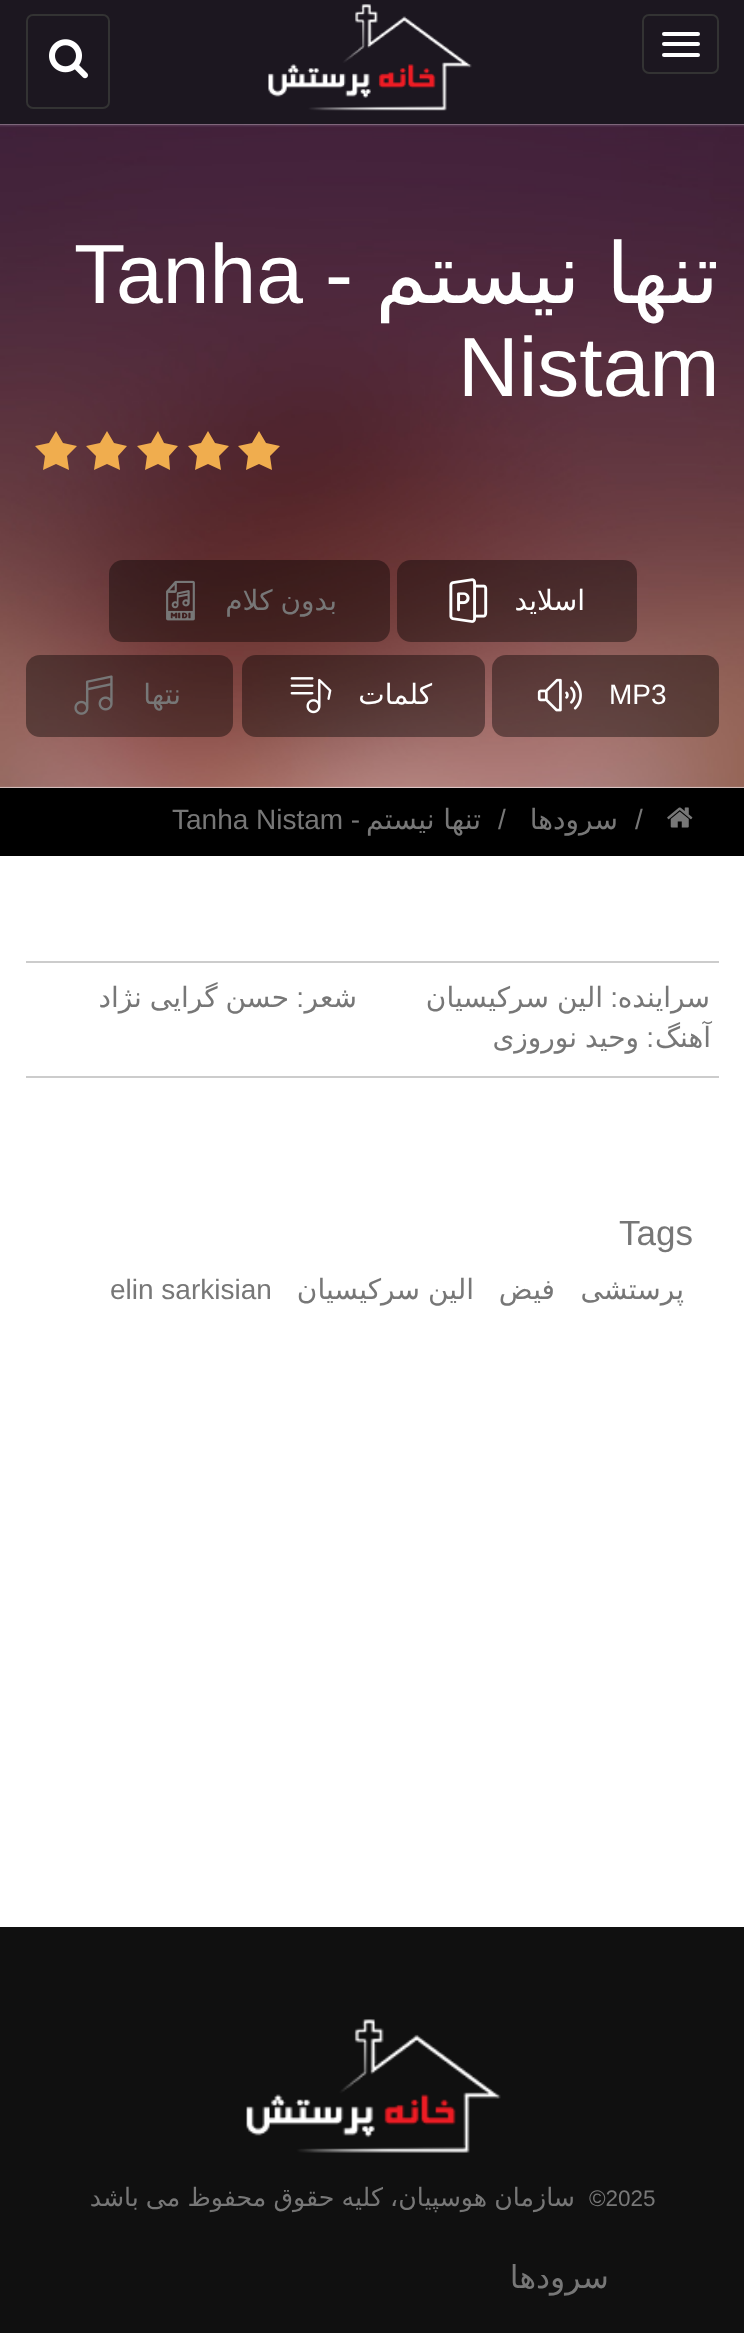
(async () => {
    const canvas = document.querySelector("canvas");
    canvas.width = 744;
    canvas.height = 2333;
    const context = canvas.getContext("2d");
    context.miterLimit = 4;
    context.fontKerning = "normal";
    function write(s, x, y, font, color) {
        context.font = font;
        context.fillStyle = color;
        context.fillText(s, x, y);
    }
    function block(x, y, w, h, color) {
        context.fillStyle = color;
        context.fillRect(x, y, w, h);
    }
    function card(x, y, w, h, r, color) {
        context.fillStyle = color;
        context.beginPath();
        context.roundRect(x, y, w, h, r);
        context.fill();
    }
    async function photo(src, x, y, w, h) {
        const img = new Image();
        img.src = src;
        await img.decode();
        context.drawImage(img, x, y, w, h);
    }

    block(0, 0, 744, 2333, "rgb(255, 255, 255)");
    block(0, 0, 744, 124, "rgb(28, 23, 32)");
    context.beginPath();
    context.roundRect(643, 15, 75, 58, 6);
    context.strokeStyle = "rgb(51, 51, 51)";
    context.lineWidth = 2;
    context.stroke();
    card(662, 32, 38, 4, 2, "rgb(255, 255, 255)");
    card(662, 42, 38, 4, 2, "rgb(255, 255, 255)");
    card(662, 53, 38, 4, 2, "rgb(255, 255, 255)");
    await photo("media/1.png", 268, 4, 204, 107);
    context.beginPath();
    context.roundRect(27, 15, 82, 93, 6);
    context.stroke();
    await photo("media/2.png", 49, 39, 39, 40);
    await photo("media/3.png", 0, 124, 744, 664);
    context.wordSpacing = "-1px";
    context.direction = "rtl";
    write("تنها نیستم", 719, 303, "84px DejaVu Sans", "rgb(255, 255, 255)");
    context.wordSpacing = "0px";
    write("-", 353, 303, "84px Liberation Sans", "rgb(255, 255, 255)");
    context.direction = "ltr";
    write("Tanha", 74, 303, "84px Liberation Sans", "rgb(255, 255, 255)");
    write("Nistam", 458, 396, "84px Liberation Sans", "rgb(255, 255, 255)");
    context.fillStyle = "rgb(240, 173, 78)";
    context.beginPath();
    context.moveTo(259, 431);
    context.lineTo(266, 443);
    context.lineTo(280, 446);
    context.lineTo(270, 456);
    context.lineTo(272, 470);
    context.lineTo(259, 464);
    context.lineTo(246, 470);
    context.lineTo(248, 456);
    context.lineTo(238, 446);
    context.lineTo(252, 443);
    context.closePath();
    context.fill();
    context.beginPath();
    context.moveTo(208, 431);
    context.lineTo(215, 443);
    context.lineTo(229, 446);
    context.lineTo(219, 456);
    context.lineTo(221, 470);
    context.lineTo(208, 464);
    context.lineTo(195, 470);
    context.lineTo(197, 456);
    context.lineTo(188, 446);
    context.lineTo(201, 443);
    context.closePath();
    context.fill();
    context.beginPath();
    context.moveTo(158, 431);
    context.lineTo(164, 443);
    context.lineTo(178, 446);
    context.lineTo(169, 456);
    context.lineTo(170, 470);
    context.lineTo(158, 464);
    context.lineTo(145, 470);
    context.lineTo(147, 456);
    context.lineTo(137, 446);
    context.lineTo(151, 443);
    context.closePath();
    context.fill();
    context.beginPath();
    context.moveTo(107, 431);
    context.lineTo(114, 443);
    context.lineTo(127, 446);
    context.lineTo(118, 456);
    context.lineTo(120, 470);
    context.lineTo(107, 464);
    context.lineTo(94, 470);
    context.lineTo(96, 456);
    context.lineTo(86, 446);
    context.lineTo(100, 443);
    context.closePath();
    context.fill();
    context.beginPath();
    context.moveTo(56, 431);
    context.lineTo(63, 443);
    context.lineTo(77, 446);
    context.lineTo(67, 456);
    context.lineTo(69, 470);
    context.lineTo(56, 464);
    context.lineTo(43, 470);
    context.lineTo(45, 456);
    context.lineTo(35, 446);
    context.lineTo(49, 443);
    context.closePath();
    context.fill();
    card(397, 560, 240, 82, 14, "rgba(0, 0, 0, 0.4)");
    context.direction = "rtl";
    write("اسلاید", 585, 610, "28px DejaVu Sans", "rgb(255, 255, 255)");
    await photo("media/4.png", 449, 578, 39, 45);
    card(109, 560, 281, 82, 14, "rgba(0, 0, 0, 0.4)");
    context.wordSpacing = "-1px";
    write("بدون کلام", 337, 610, "28px DejaVu Sans", "rgb(119, 119, 119)");
    await photo("media/5.png", 166, 580, 29, 41);
    card(492, 655, 227, 82, 14, "rgba(0, 0, 0, 0.4)");
    context.wordSpacing = "0px";
    context.direction = "ltr";
    write("MP3", 609, 704, "28px Liberation Sans", "rgb(255, 255, 255)");
    await photo("media/6.png", 537, 678, 45, 34);
    card(242, 655, 243, 82, 14, "rgba(0, 0, 0, 0.4)");
    context.direction = "rtl";
    write("کلمات", 432, 704, "28px DejaVu Sans", "rgb(255, 255, 255)");
    await photo("media/7.png", 290, 677, 42, 37);
    card(26, 655, 207, 82, 14, "rgba(0, 0, 0, 0.4)");
    write("نتها", 181, 704, "28px DejaVu Sans", "rgb(119, 119, 119)");
    await photo("media/8.png", 74, 675, 39, 40);
    block(0, 788, 744, 68, "rgb(0, 0, 0)");
    await photo("media/9.png", 667, 807, 26, 21);
    context.direction = "ltr";
    write("/", 635, 829, "28px Liberation Sans", "rgb(119, 119, 119)");
    context.direction = "rtl";
    write("سرودها", 618, 829, "28px DejaVu Sans", "rgb(119, 119, 119)");
    context.direction = "ltr";
    write("/", 498, 829, "28px Liberation Sans", "rgb(119, 119, 119)");
    context.direction = "rtl";
    write("تنها نیستم", 481, 829, "28px DejaVu Sans", "rgb(119, 119, 119)");
    write("-", 360, 829, "28px Liberation Sans", "rgb(119, 119, 119)");
    context.direction = "ltr";
    write("Tanha Nistam", 172, 829, "28px Liberation Sans", "rgb(119, 119, 119)");
    block(26, 961, 693, 2, "rgb(204, 204, 204)");
    block(26, 1076, 693, 2, "rgb(204, 204, 204)");
    context.direction = "rtl";
    write("سراینده", 710, 1007, "28px DejaVu Sans", "rgb(119, 119, 119)");
    write(":", 618, 1007, "28px Liberation Sans", "rgb(119, 119, 119)");
    context.wordSpacing = "-1px";
    write("الین سرکیسیان", 603, 1007, "28px DejaVu Sans", "rgb(119, 119, 119)");
    context.wordSpacing = "0px";
    write("شعر", 357, 1007, "28px DejaVu Sans", "rgb(119, 119, 119)");
    write(":", 304, 1007, "28px Liberation Sans", "rgb(119, 119, 119)");
    context.wordSpacing = "-1px";
    write("حسن گرایی نژاد", 289, 1007, "28px DejaVu Sans", "rgb(119, 119, 119)");
    context.wordSpacing = "0px";
    write("آهنگ", 711, 1047, "28px DejaVu Sans", "rgb(119, 119, 119)");
    write(":", 654, 1047, "28px Liberation Sans", "rgb(119, 119, 119)");
    context.wordSpacing = "-1px";
    write("وحید نوروزی", 639, 1047, "28px DejaVu Sans", "rgb(119, 119, 119)");
    context.wordSpacing = "0px";
    context.direction = "ltr";
    write("Tags", 619, 1245, "35px Liberation Sans", "rgb(119, 119, 119)");
    context.direction = "rtl";
    write("پرستشی", 684, 1299, "28px DejaVu Sans", "rgb(119, 119, 119)");
    write("فیض", 555, 1299, "28px DejaVu Sans", "rgb(119, 119, 119)");
    context.wordSpacing = "-1px";
    write("الین سرکیسیان", 474, 1299, "28px DejaVu Sans", "rgb(119, 119, 119)");
    context.wordSpacing = "0px";
    context.direction = "ltr";
    write("elin sarkisian", 110, 1299, "28px Liberation Sans", "rgb(119, 119, 119)");
    block(0, 1927, 744, 406, "rgb(16, 16, 16)");
    await photo("media/10.png", 246, 2019, 255, 134);
    write("©2025", 589, 2206, "22.5px Liberation Sans", "rgb(119, 119, 119)");
    context.wordSpacing = "-1px";
    context.direction = "rtl";
    write("سازمان هوسپیان، کلیه حقوق محفوظ می باشد", 575, 2206, "25.25px DejaVu Sans", "rgb(119, 119, 119)");
    context.wordSpacing = "0px";
    write("سرودها", 609, 2288, "31.5px DejaVu Sans", "rgb(119, 119, 119)");
})();
